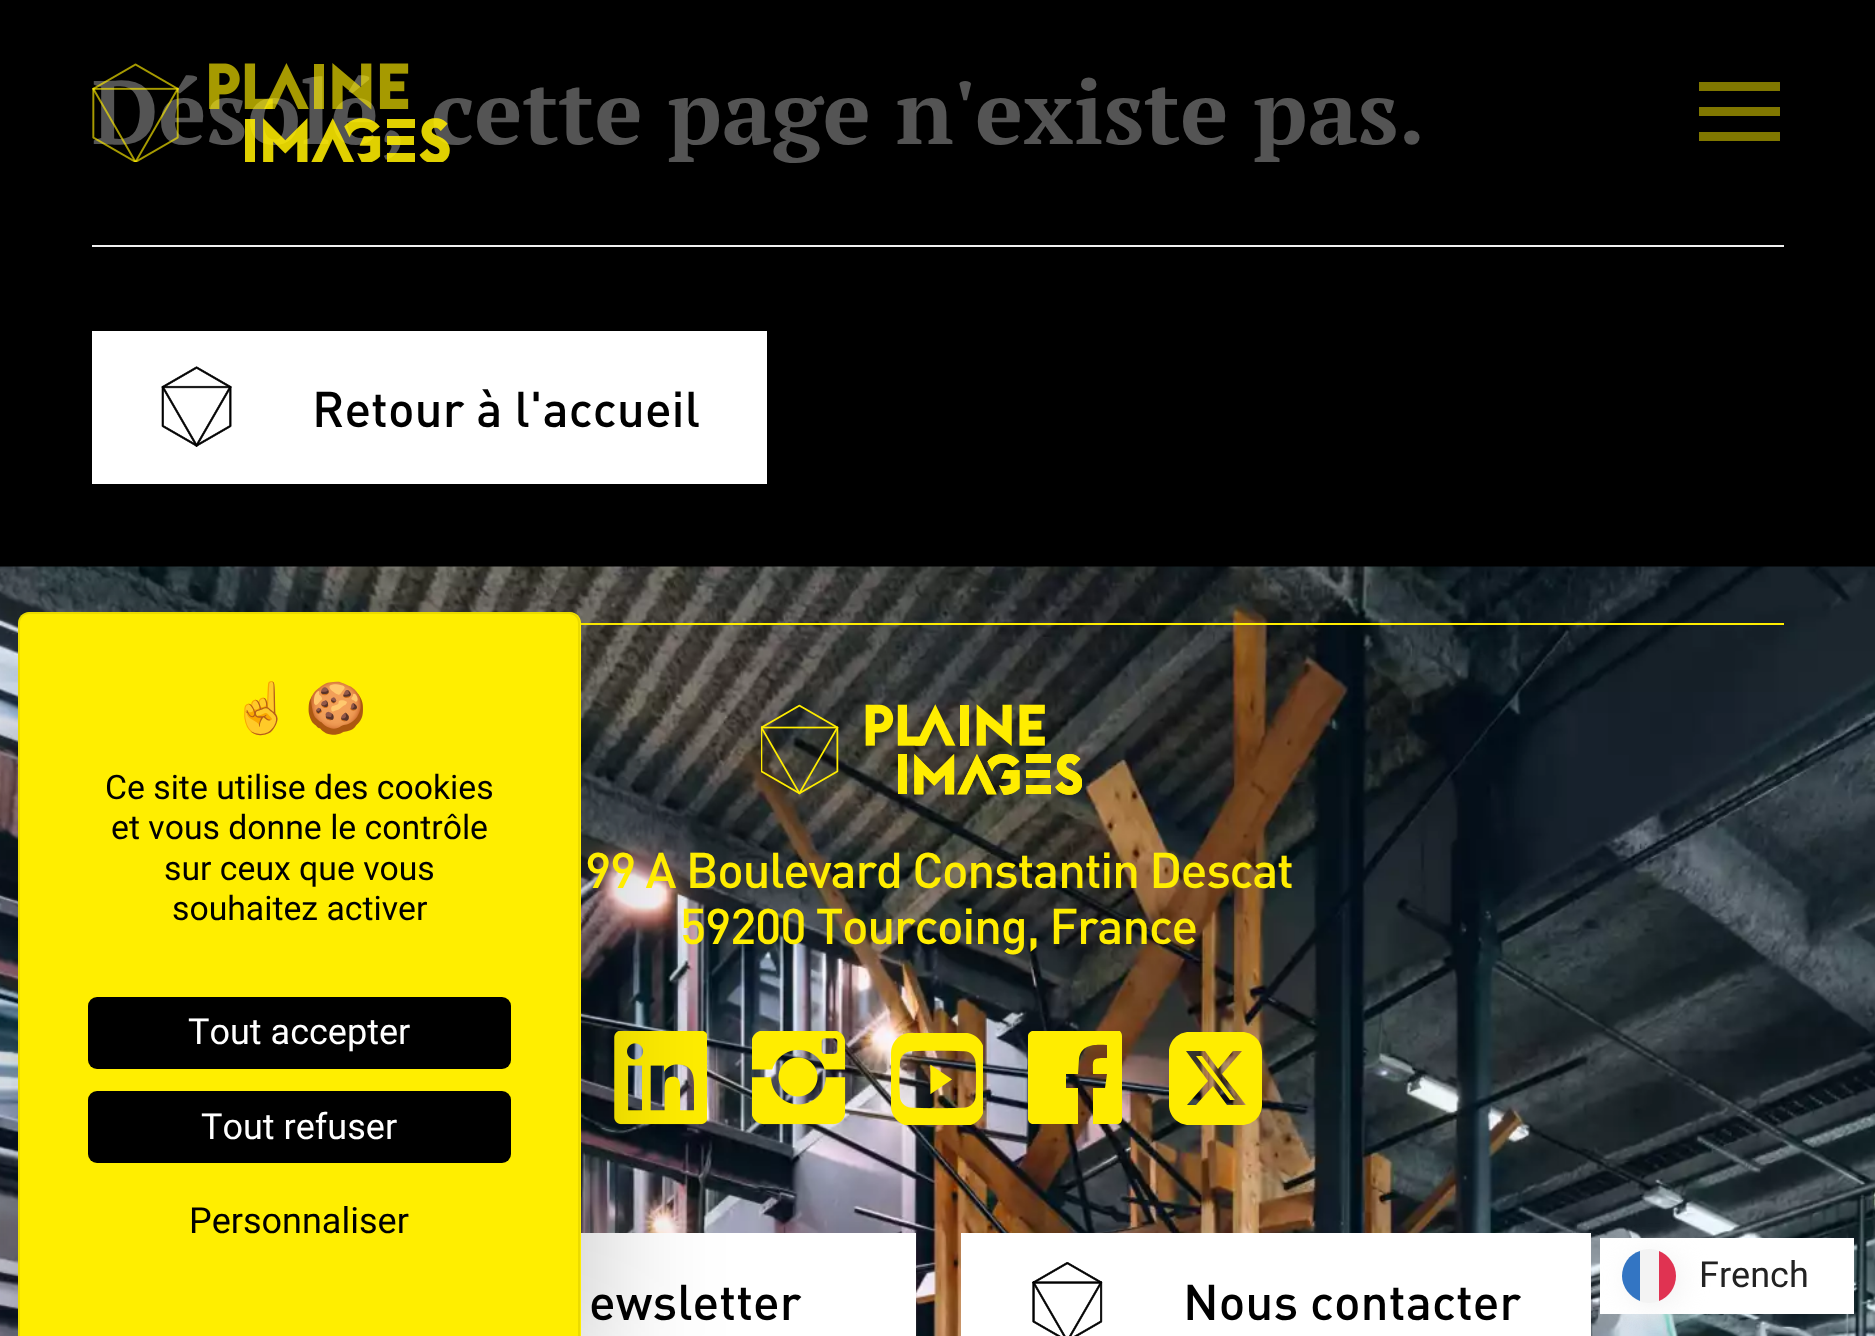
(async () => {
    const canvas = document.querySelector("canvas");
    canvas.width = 1875;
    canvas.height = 1336;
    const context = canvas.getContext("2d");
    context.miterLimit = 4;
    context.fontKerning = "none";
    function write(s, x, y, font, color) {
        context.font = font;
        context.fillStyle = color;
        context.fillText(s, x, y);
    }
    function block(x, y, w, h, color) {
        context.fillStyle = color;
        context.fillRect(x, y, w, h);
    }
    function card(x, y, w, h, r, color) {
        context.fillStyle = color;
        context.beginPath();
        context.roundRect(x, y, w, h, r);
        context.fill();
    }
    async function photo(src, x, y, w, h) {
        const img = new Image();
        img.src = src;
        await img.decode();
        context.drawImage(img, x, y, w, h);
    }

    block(0, 0, 1875, 1336, "rgb(0, 0, 0)");
    write("Désolé, cette page n'existe pas.", 92, 144, "bold 90px PT Serif", "rgb(84, 84, 84)");
    await photo("media/1.png", 92, 63, 358, 99);
    block(1699, 82, 81, 9, "rgb(128, 119, 0)");
    block(1699, 107, 81, 9, "rgb(128, 119, 0)");
    block(1699, 132, 81, 9, "rgb(128, 119, 0)");
    block(92, 245, 1692, 2, "rgb(240, 240, 240)");
    block(92, 331, 675, 153, "rgb(255, 255, 255)");
    await photo("media/2.png", 161, 366, 71, 81);
    write("Retour à l'accueil", 312, 427, "500 49.5px DIN", "rgb(0, 0, 0)");
    await photo("media/3.png", 0, 566, 1875, 770);
    block(581, 623, 1203, 2, "rgb(255, 237, 0)");
    await photo("media/4.png", 761, 704, 321, 91);
    await photo("media/5.png", 614, 1031, 93, 94);
    await photo("media/6.png", 752, 1031, 94, 94);
    block(581, 1233, 335, 103, "rgb(255, 255, 255)");
    context.fillStyle = "rgba(0, 0, 0, 0.25)";
    context.filter = "blur(67.5px)";
    context.beginPath();
    context.roundRect(18, 657, 563, 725, 11);
    context.fill();
    context.filter = "none";
    context.fillStyle = "rgb(255, 238, 0)";
    context.beginPath();
    context.moveTo(29, 612);
    context.lineTo(570, 612);
    context.bezierCurveTo(576, 612, 581, 617, 581, 623);
    context.lineTo(581, 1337);
    context.lineTo(18, 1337);
    context.lineTo(18, 623);
    context.bezierCurveTo(18, 617, 23, 612, 29, 612);
    context.closePath();
    context.fill();
    context.fillStyle = "rgba(0, 0, 0, 0.08)";
    context.beginPath();
    context.moveTo(29, 612);
    context.lineTo(569, 612);
    context.bezierCurveTo(575, 612, 580, 617, 580, 623);
    context.lineTo(580, 1336);
    context.lineTo(18, 1336);
    context.lineTo(18, 623);
    context.bezierCurveTo(18, 617, 23, 612, 29, 612);
    context.closePath();
    context.moveTo(29, 614);
    context.lineTo(569, 614);
    context.bezierCurveTo(574, 614, 578, 618, 578, 623);
    context.lineTo(578, 1336);
    context.lineTo(20, 1336);
    context.lineTo(20, 623);
    context.bezierCurveTo(20, 618, 24, 614, 29, 614);
    context.closePath();
    context.fill("evenodd");
    write("☝️", 231, 725, "49.5px Noto Color Emoji", "rgb(0, 0, 0)");
    write("🍪", 305, 725, "49.5px Noto Color Emoji", "rgb(0, 0, 0)");
    write("Ce site utilise des cookies", 105, 799, "33.75px Roboto", "rgb(0, 0, 0)");
    write("et vous donne le contrôle", 111, 839, "33.75px Roboto", "rgb(0, 0, 0)");
    write("sur ceux que vous", 164, 880, "33.75px Roboto", "rgb(0, 0, 0)");
    write("souhaitez activer", 172, 920, "33.75px Roboto", "rgb(0, 0, 0)");
    card(88, 997, 423, 72, 9, "rgb(0, 0, 0)");
    write("Tout accepter", 188, 1044, "36px Roboto", "rgb(255, 255, 255)");
    card(88, 1091, 423, 72, 9, "rgb(0, 0, 0)");
    write("Tout refuser", 201, 1139, "36px Roboto", "rgb(255, 255, 255)");
    write("Personnaliser", 189, 1233, "36px Roboto", "rgb(0, 0, 0)");
    context.letterSpacing = "-1.35px";
    write("99 A Boulevard Constantin Descat", 585, 888, "500 49.5px DIN", "rgb(255, 237, 0)");
    write("59200 Tourcoing, France", 680, 944, "500 49.5px DIN", "rgb(255, 237, 0)");
    await photo("media/7.png", 891, 1033, 92, 92);
    context.save();
    context.beginPath();
    context.rect(1028, 1031, 95, 94);
    context.clip();
    context.beginPath();
    context.moveTo(1117, 1031);
    context.lineTo(1033, 1031);
    context.bezierCurveTo(1031, 1031, 1028, 1033, 1028, 1036);
    context.lineTo(1028, 1119);
    context.bezierCurveTo(1028, 1122, 1031, 1124, 1033, 1124);
    context.lineTo(1078, 1124);
    context.lineTo(1078, 1088);
    context.lineTo(1066, 1088);
    context.lineTo(1066, 1074);
    context.lineTo(1078, 1074);
    context.lineTo(1079, 1059);
    context.bezierCurveTo(1081, 1044, 1095, 1044, 1107, 1045);
    context.lineTo(1107, 1058);
    context.bezierCurveTo(1091, 1058, 1093, 1059, 1093, 1074);
    context.lineTo(1107, 1074);
    context.lineTo(1105, 1088);
    context.lineTo(1093, 1088);
    context.lineTo(1093, 1124);
    context.lineTo(1117, 1124);
    context.bezierCurveTo(1120, 1124, 1122, 1122, 1122, 1119);
    context.lineTo(1122, 1036);
    context.bezierCurveTo(1122, 1033, 1120, 1030, 1117, 1030);
    context.closePath();
    context.fill();
    context.restore();
    context.beginPath();
    context.moveTo(1242, 1125);
    context.lineTo(1189, 1125);
    context.bezierCurveTo(1178, 1125, 1169, 1116, 1169, 1105);
    context.lineTo(1169, 1052);
    context.bezierCurveTo(1169, 1041, 1178, 1032, 1189, 1032);
    context.lineTo(1242, 1032);
    context.bezierCurveTo(1253, 1032, 1262, 1041, 1262, 1052);
    context.lineTo(1262, 1105);
    context.bezierCurveTo(1262, 1116, 1253, 1125, 1242, 1125);
    context.closePath();
    context.moveTo(1213, 1086);
    context.lineTo(1227, 1105);
    context.lineTo(1246, 1105);
    context.lineTo(1222, 1074);
    context.lineTo(1242, 1051);
    context.lineTo(1233, 1051);
    context.lineTo(1218, 1069);
    context.lineTo(1205, 1051);
    context.lineTo(1186, 1051);
    context.lineTo(1208, 1081);
    context.lineTo(1187, 1105);
    context.lineTo(1196, 1105);
    context.closePath();
    context.moveTo(1235, 1100);
    context.lineTo(1230, 1100);
    context.lineTo(1196, 1056);
    context.lineTo(1202, 1056);
    context.closePath();
    context.fill();
    context.letterSpacing = "0px";
    write("ewsletter", 589, 1320, "500 49.5px DIN", "rgb(0, 0, 0)");
    block(961, 1233, 630, 103, "rgb(255, 255, 255)");
    await photo("media/8.png", 1032, 1262, 71, 74);
    write("Nous contacter", 1183, 1320, "500 49.5px DIN", "rgb(0, 0, 0)");
    context.fillStyle = "rgba(238, 238, 238, 0.8)";
    context.filter = "blur(13.5px)";
    context.beginPath();
    context.roundRect(1627, 1253, 54, 54, 27);
    context.fill();
    context.filter = "none";
    block(1600, 1238, 254, 76, "rgb(255, 255, 255)");
    context.fillStyle = "rgba(238, 238, 238, 0.8)";
    context.filter = "blur(13.5px)";
    context.beginPath();
    context.roundRect(1627, 1253, 54, 54, 27);
    context.fill();
    context.filter = "none";
    context.fillStyle = "rgb(243, 243, 243)";
    context.beginPath();
    context.arc(1649, 1276, 27, 0, Math.PI * 2);
    context.fill();
    context.fillStyle = "rgb(224, 51, 82)";
    context.beginPath();
    context.moveTo(1676, 1276);
    context.bezierCurveTo(1676, 1265, 1669, 1255, 1659, 1251);
    context.lineTo(1659, 1301);
    context.bezierCurveTo(1669, 1297, 1676, 1287, 1676, 1276);
    context.closePath();
    context.fill();
    context.fillStyle = "rgb(51, 117, 195)";
    context.beginPath();
    context.moveTo(1622, 1276);
    context.bezierCurveTo(1622, 1265, 1629, 1254, 1640, 1251);
    context.lineTo(1640, 1301);
    context.bezierCurveTo(1630, 1297, 1622, 1287, 1622, 1276);
    context.closePath();
    context.fill();
    write("French", 1699, 1287, "36px Roboto", "rgb(34, 34, 34)");
})();
